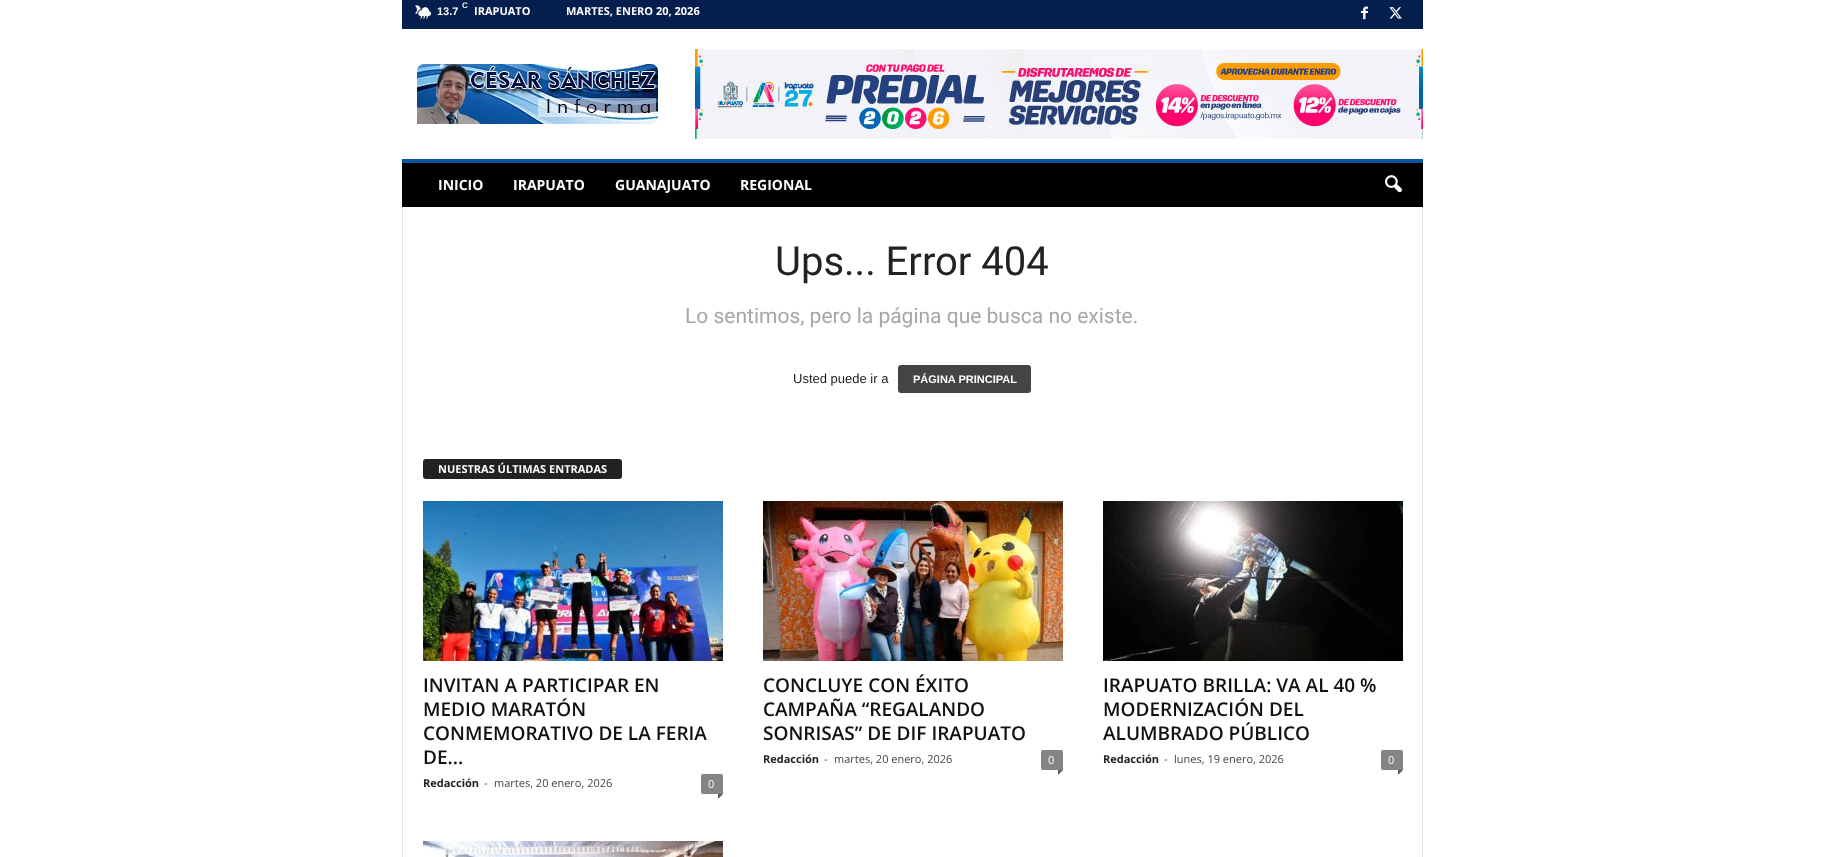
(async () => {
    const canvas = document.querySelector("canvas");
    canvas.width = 1824;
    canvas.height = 857;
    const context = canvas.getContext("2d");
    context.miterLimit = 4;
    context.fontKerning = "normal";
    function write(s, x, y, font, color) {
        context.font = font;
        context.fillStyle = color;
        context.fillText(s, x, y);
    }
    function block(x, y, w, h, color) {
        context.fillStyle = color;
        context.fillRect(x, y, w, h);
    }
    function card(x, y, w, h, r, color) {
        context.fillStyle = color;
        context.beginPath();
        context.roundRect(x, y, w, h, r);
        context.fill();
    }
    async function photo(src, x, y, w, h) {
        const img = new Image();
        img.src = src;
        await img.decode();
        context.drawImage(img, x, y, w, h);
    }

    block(0, 0, 1824, 857, "rgb(255, 255, 255)");
    block(402, 0, 1021, 29, "rgb(4, 30, 77)");
    await photo("media/1.png", 415, 5, 17, 14);
    write("C", 462, 8, "bold 8px Liberation Sans", "rgb(252, 252, 252)");
    write("13.7", 437, 15, "bold 11px Liberation Sans", "rgb(252, 252, 252)");
    write("IRAPUATO", 474, 15, "bold 11px Open Sans", "rgb(252, 252, 252)");
    write("MARTES, ENERO 20, 2026", 566, 15, "bold 11px Open Sans", "rgb(252, 252, 252)");
    await photo("media/2.png", 1361, 6, 7, 14);
    await photo("media/3.png", 1389, 7, 13, 12);
    await photo("media/4.png", 417, 64, 241, 60);
    await photo("media/5.png", 695, 49, 728, 90);
    block(402, 163, 1021, 44, "rgb(0, 0, 0)");
    block(402, 159, 1021, 4, "rgb(13, 85, 164)");
    write("INICIO", 438, 190, "bold 14px Open Sans", "rgb(252, 252, 252)");
    write("IRAPUATO", 513, 190, "bold 14px Open Sans", "rgb(252, 252, 252)");
    write("GUANAJUATO", 615, 190, "bold 14px Open Sans", "rgb(252, 252, 252)");
    write("REGIONAL", 740, 190, "bold 14px Open Sans", "rgb(252, 252, 252)");
    await photo("media/6.png", 1385, 175, 17, 18);
    block(402, 207, 1, 650, "rgb(230, 230, 230)");
    write("Ups... Error 404", 775, 275, "40px Roboto", "rgb(34, 34, 34)");
    write("Lo sentimos, pero la página que busca no existe.", 685, 323, "21px Roboto", "rgb(166, 166, 166)");
    write("Usted puede ir a", 793, 383, "13px Liberation Sans", "rgb(34, 34, 34)");
    card(898, 365, 133, 28, 3, "rgb(68, 68, 68)");
    write("PÁGINA PRINCIPAL", 913, 383, "bold 11px Liberation Sans", "rgb(252, 252, 252)");
    card(423, 459, 199, 20, 3, "rgb(34, 34, 34)");
    write("NUESTRAS ÚLTIMAS ENTRADAS", 438, 473, "bold 11px Open Sans", "rgb(252, 252, 252)");
    await photo("media/7.png", 423, 501, 300, 160);
    write("INVITAN A PARTICIPAR EN", 423, 692, "600 19px Open Sans", "rgb(17, 17, 17)");
    write("MEDIO MARATÓN", 423, 716, "600 19px Open Sans", "rgb(17, 17, 17)");
    write("CONMEMORATIVO DE LA FERIA", 423, 740, "600 19px Open Sans", "rgb(17, 17, 17)");
    write("DE...", 423, 764, "600 19px Open Sans", "rgb(17, 17, 17)");
    write("Redacción", 423, 787, "bold 11px Open Sans", "rgb(34, 34, 34)");
    write("-", 484, 787, "11px Open Sans", "rgb(68, 68, 68)");
    write("martes, 20 enero, 2026", 494, 787, "11px Open Sans", "rgb(68, 68, 68)");
    context.fillStyle = "rgb(132, 132, 132)";
    context.beginPath();
    context.roundRect(701, 774, 22, 20, [2, 2, 0, 2]);
    context.fill();
    write("0", 708, 788, "11px Open Sans", "rgb(252, 252, 252)");
    context.fillStyle = "rgb(91, 91, 91)";
    context.beginPath();
    context.moveTo(718, 794);
    context.lineTo(723, 794);
    context.lineTo(718, 799);
    context.closePath();
    context.fill();
    await photo("media/8.png", 763, 501, 300, 160);
    write("CONCLUYE CON ÉXITO", 763, 692, "600 19px Open Sans", "rgb(17, 17, 17)");
    write("CAMPAÑA “REGALANDO", 763, 716, "600 19px Open Sans", "rgb(17, 17, 17)");
    write("SONRISAS” DE DIF IRAPUATO", 763, 740, "600 19px Open Sans", "rgb(17, 17, 17)");
    write("Redacción", 763, 763, "bold 11px Open Sans", "rgb(34, 34, 34)");
    write("-", 824, 763, "11px Open Sans", "rgb(68, 68, 68)");
    write("martes, 20 enero, 2026", 834, 763, "11px Open Sans", "rgb(68, 68, 68)");
    context.fillStyle = "rgb(132, 132, 132)";
    context.beginPath();
    context.roundRect(1041, 750, 22, 20, [2, 2, 0, 2]);
    context.fill();
    write("0", 1048, 764, "11px Open Sans", "rgb(252, 252, 252)");
    context.fillStyle = "rgb(91, 91, 91)";
    context.beginPath();
    context.moveTo(1058, 770);
    context.lineTo(1063, 770);
    context.lineTo(1058, 775);
    context.closePath();
    context.fill();
    await photo("media/9.png", 1103, 501, 300, 160);
    write("IRAPUATO BRILLA: VA AL 40 %", 1103, 692, "600 19px Open Sans", "rgb(17, 17, 17)");
    write("MODERNIZACIÓN DEL", 1103, 716, "600 19px Open Sans", "rgb(17, 17, 17)");
    write("ALUMBRADO PÚBLICO", 1103, 740, "600 19px Open Sans", "rgb(17, 17, 17)");
    write("Redacción", 1103, 763, "bold 11px Open Sans", "rgb(34, 34, 34)");
    write("-", 1164, 763, "11px Open Sans", "rgb(68, 68, 68)");
    write("lunes, 19 enero, 2026", 1174, 763, "11px Open Sans", "rgb(68, 68, 68)");
    context.fillStyle = "rgb(132, 132, 132)";
    context.beginPath();
    context.roundRect(1381, 750, 22, 20, [2, 2, 0, 2]);
    context.fill();
    write("0", 1388, 764, "11px Open Sans", "rgb(252, 252, 252)");
    context.fillStyle = "rgb(91, 91, 91)";
    context.beginPath();
    context.moveTo(1398, 770);
    context.lineTo(1403, 770);
    context.lineTo(1398, 775);
    context.closePath();
    context.fill();
    await photo("media/10.png", 423, 841, 300, 16);
    block(1422, 207, 1, 650, "rgb(230, 230, 230)");
})();
